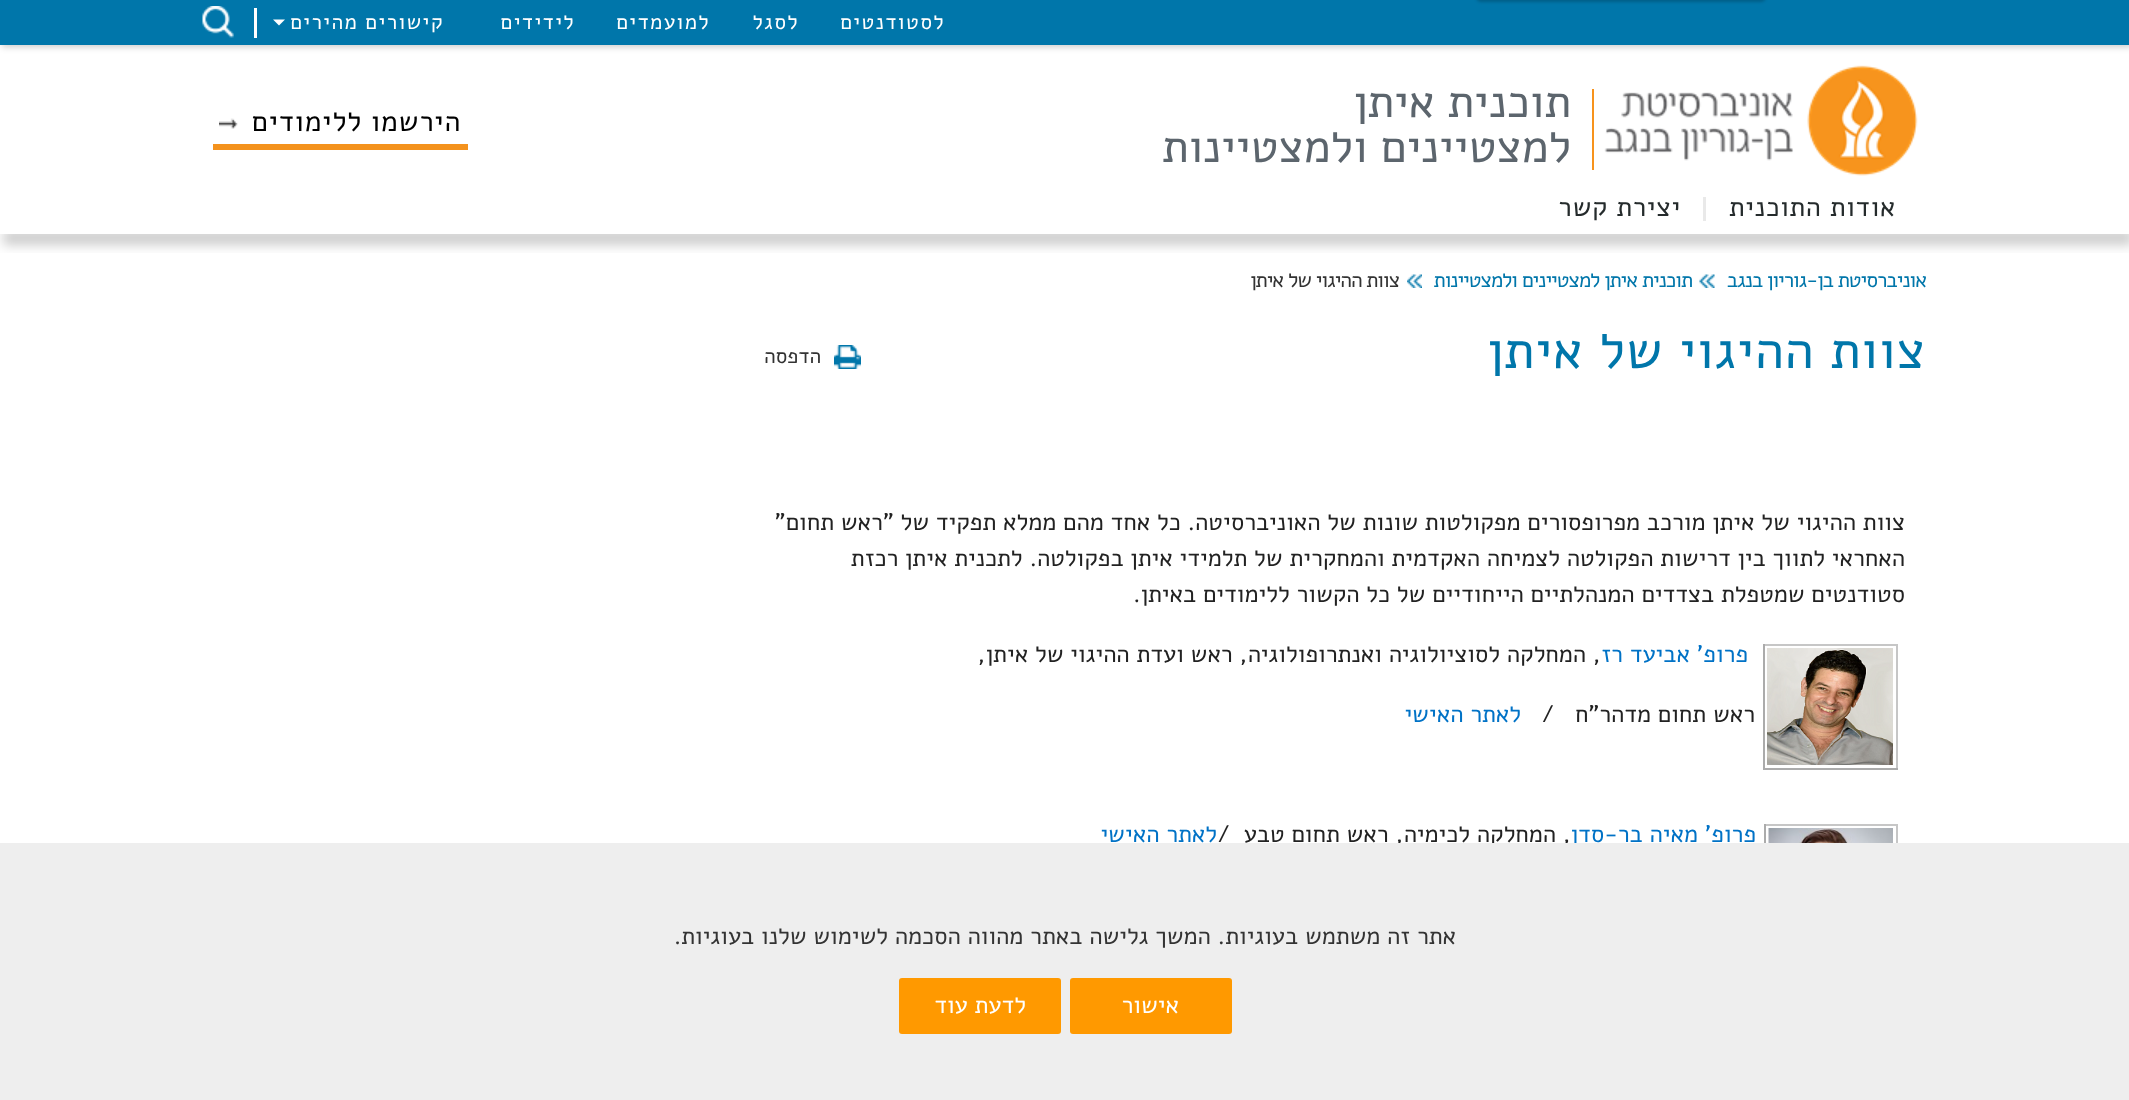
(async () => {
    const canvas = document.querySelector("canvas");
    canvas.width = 2129;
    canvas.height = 1100;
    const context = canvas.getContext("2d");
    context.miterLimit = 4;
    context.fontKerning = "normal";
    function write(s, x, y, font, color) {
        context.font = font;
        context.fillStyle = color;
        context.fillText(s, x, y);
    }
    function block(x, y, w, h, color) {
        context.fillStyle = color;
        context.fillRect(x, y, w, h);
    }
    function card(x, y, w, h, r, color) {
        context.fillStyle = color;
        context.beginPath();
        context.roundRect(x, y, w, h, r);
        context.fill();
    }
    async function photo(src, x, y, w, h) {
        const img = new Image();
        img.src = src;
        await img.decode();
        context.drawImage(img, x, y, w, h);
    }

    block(0, 0, 2129, 1100, "rgb(255, 255, 255)");
    context.fillStyle = "rgba(0, 0, 0, 0.2)";
    context.filter = "blur(3px)";
    context.beginPath();
    context.rect(2, 2, 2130, 45);
    context.fill();
    context.filter = "none";
    block(0, 0, 2129, 45, "rgb(0, 118, 170)");
    context.fillStyle = "rgba(0, 0, 0, 0.2)";
    context.filter = "blur(1.5px)";
    context.beginPath();
    context.roundRect(1476, -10, 290, 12, 5);
    context.fill();
    context.filter = "none";
    context.letterSpacing = "1.4px";
    context.direction = "rtl";
    write("לסטודנטים", 945, 29, "21px Alef", "rgb(255, 255, 255)");
    write("לסגל", 799, 29, "21px Alef", "rgb(255, 255, 255)");
    write("למועמדים", 710, 29, "21px Alef", "rgb(255, 255, 255)");
    write("לידידים", 575, 29, "21px Alef", "rgb(255, 255, 255)");
    write("קישורים מהירים", 444, 29, "21px Alef", "rgb(255, 255, 255)");
    context.beginPath();
    context.moveTo(273, 19.5);
    context.lineTo(285, 19.5);
    context.lineTo(279, 25.5);
    context.closePath();
    context.fill();
    block(254, 8, 3, 30, "rgb(255, 255, 255)");
    await photo("media/1.png", 202, 6, 32, 32);
    await photo("media/2.png", 1604, 65, 314, 111);
    block(1592, 89, 2, 81, "rgb(247, 147, 29)");
    context.letterSpacing = "0px";
    write("תוכנית איתן", 1571, 117, "46px Alef", "rgb(92, 101, 109)");
    write("למצטיינים ולמצטיינות", 1571, 162, "46px Alef", "rgb(92, 101, 109)");
    await photo("media/3.png", 219, 118, 19, 11);
    block(213, 144, 255, 6, "rgb(244, 146, 29)");
    context.letterSpacing = "0.9px";
    write("הירשמו ללימודים", 461, 131, "28.5px Alef", "rgb(0, 0, 0)");
    context.letterSpacing = "0.75px";
    write("אודות התוכנית", 1896, 216, "27px Alef", "rgb(37, 43, 44)");
    block(1703, 197, 3, 24, "rgb(233, 233, 233)");
    write("יצירת קשר", 1681, 216, "27px Alef", "rgb(37, 43, 44)");
    context.save();
    context.beginPath();
    context.rect(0, 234, 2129, 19);
    context.clip();
    context.fillStyle = "rgba(0, 0, 0, 0.2)";
    context.filter = "blur(6px)";
    context.beginPath();
    context.rect(3, 230, 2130, 15);
    context.fill();
    context.filter = "none";
    context.restore();
    await photo("media/4.png", 1699, 274, 16, 14);
    context.letterSpacing = "-1.05px";
    write("אוניברסיטת בן-גוריון בנגב", 1926, 287, "21px Alef", "rgb(0, 118, 170)");
    await photo("media/5.png", 1407, 274, 15, 14);
    write("תוכנית איתן למצטיינים ולמצטיינות", 1692, 287, "21px Alef", "rgb(0, 118, 170)");
    write("צוות ההיגוי של איתן", 1399, 287, "21px Alef", "rgb(51, 51, 51)");
    context.letterSpacing = "0.9px";
    write("צוות ההיגוי של איתן", 1926, 368, "52.5px Alef", "rgb(0, 118, 170)");
    await photo("media/6.png", 834, 345, 27, 24);
    context.letterSpacing = "0px";
    write("הדפסה", 821, 363, "21px Alef", "rgb(51, 51, 51)");
    write("צוות ההיגוי של איתן מורכב מפרופסורים מפקולטות שונות של האוניברסיטה. כל אחד מהם ממלא תפקיד של \"ראש תחום\"", 1905, 530, "24px Alef", "rgb(34, 34, 34)");
    write("האחראי לתווך בין דרישות הפקולטה לצמיחה האקדמית והמחקרית של תלמידי איתן בפקולטה. לתכנית איתן רכזת", 1905, 566, "24px Alef", "rgb(34, 34, 34)");
    write("סטודנטים שמטפלת בצדדים המנהלתיים הייחודיים של כל הקשור ללימודים באיתן.", 1905, 602, "24px Alef", "rgb(34, 34, 34)");
    block(1763, 644, 135, 2, "rgb(198, 198, 198)");
    block(1896, 644, 2, 126, "rgb(198, 198, 198)");
    block(1763, 768, 135, 2, "rgb(171, 171, 171)");
    block(1763, 644, 2, 126, "rgb(171, 171, 171)");
    await photo("media/7.png", 1767, 648, 126, 117);
    write("פרופ' אביעד רז", 1748, 662, "24px Alef", "rgb(0, 114, 198)");
    write(", המחלקה לסוציולוגיה ואנתרופולוגיה, ראש ועדת ההיגוי של איתן,", 1601, 662, "24px Alef", "rgb(34, 34, 34)");
    write("ראש תחום מדהר\"ח   /", 1755, 722, "24px Alef", "rgb(34, 34, 34)");
    write("לאתר האישי", 1521, 722, "24px Alef", "rgb(0, 114, 198)");
    block(1764, 824, 134, 2, "rgb(198, 198, 198)");
    block(1896, 824, 2, 19, "rgb(198, 198, 198)");
    block(1764, 824, 2, 19, "rgb(171, 171, 171)");
    await photo("media/8.png", 1768, 828, 125, 15);
    write("פרופ' מאיה בר-סדן", 1756, 842, "24px Alef", "rgb(0, 114, 198)");
    write(", המחלקה לכימיה, ראש תחום טבע", 1571, 842, "24px Alef", "rgb(34, 34, 34)");
    context.direction = "ltr";
    write("/", 1217, 842, "24px Alef", "rgb(34, 34, 34)");
    context.direction = "rtl";
    write("לאתר האישי", 1217, 842, "24px Alef", "rgb(0, 114, 198)");
    block(0, 843, 2129, 257, "rgb(238, 238, 238)");
    write("אתר זה משתמש בעוגיות. המשך גלישה באתר מהווה הסכמה לשימוש שלנו בעוגיות.", 1456, 944, "24px Alef", "rgb(51, 51, 51)");
    card(1070, 978, 162, 56, 3, "rgb(255, 153, 0)");
    write("אישור", 1179, 1013, "24px Alef", "rgb(255, 255, 255)");
    card(899, 978, 162, 56, 3, "rgb(255, 153, 0)");
    write("לדעת עוד", 1026, 1013, "24px Alef", "rgb(255, 255, 255)");
})();
